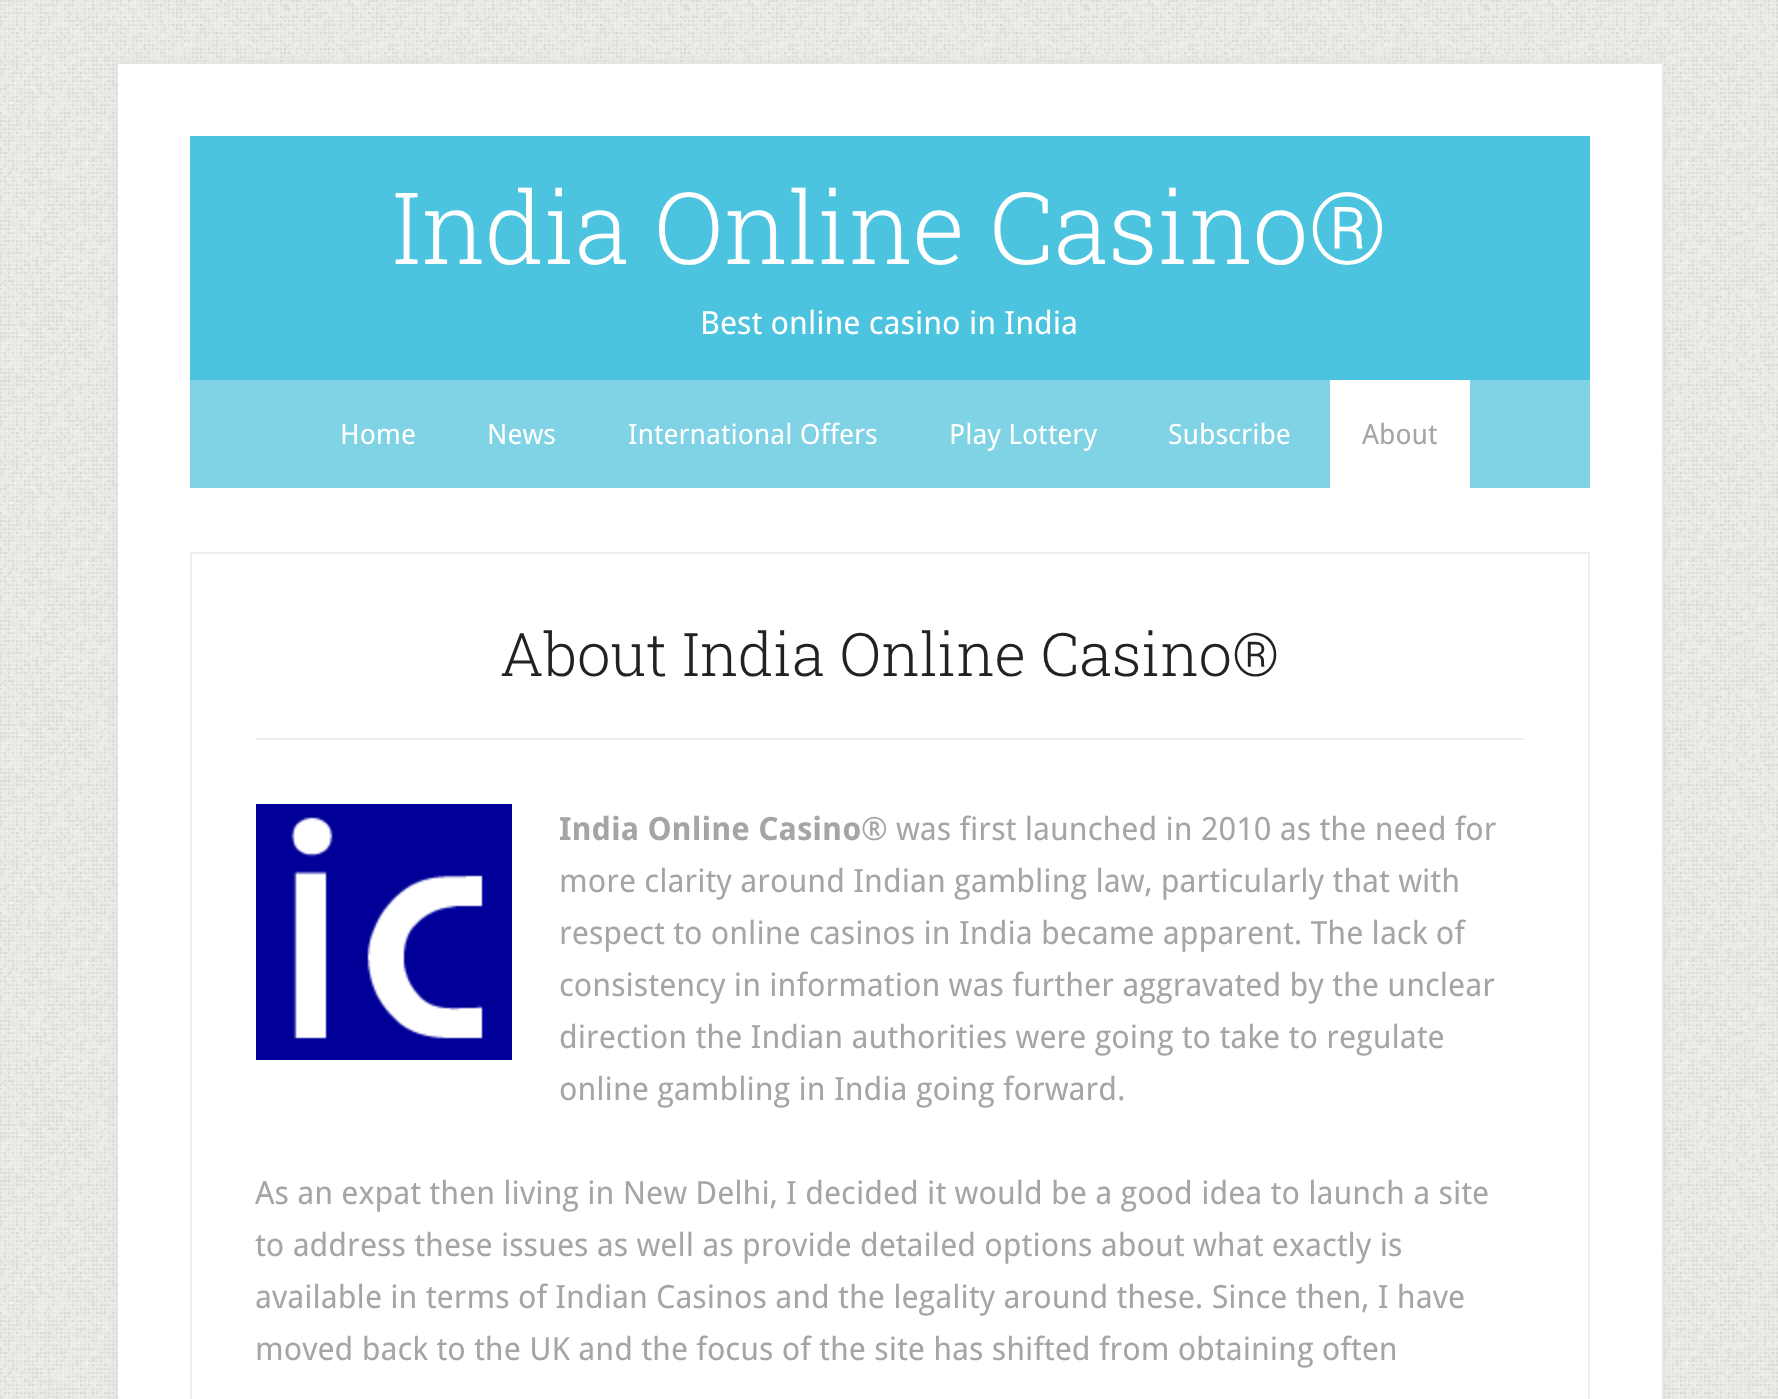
(async () => {
    const canvas = document.querySelector("canvas");
    canvas.width = 1778;
    canvas.height = 1399;
    const context = canvas.getContext("2d");
    context.miterLimit = 4;
    context.fontKerning = "normal";
    function write(s, x, y, font, color) {
        context.font = font;
        context.fillStyle = color;
        context.fillText(s, x, y);
    }
    function block(x, y, w, h, color) {
        context.fillStyle = color;
        context.fillRect(x, y, w, h);
    }
    async function photo(src, x, y, w, h) {
        const img = new Image();
        img.src = src;
        await img.decode();
        context.drawImage(img, x, y, w, h);
    }

    block(0, 0, 1778, 1399, "rgb(255, 255, 255)");
    await photo("media/1.png", 0, 0, 1778, 1399);
    context.fillStyle = "rgb(221, 221, 221)";
    context.filter = "blur(5px)";
    context.beginPath();
    context.rect(118, 64, 1544, 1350);
    context.fill();
    context.filter = "none";
    block(118, 64, 1544, 1335, "rgb(255, 255, 255)");
    block(190, 136, 1400, 244, "rgb(76, 196, 224)");
    write("India Online Casino®", 392, 264, "300 100px Roboto Slab", "rgb(255, 255, 255)");
    write("Best online casino in India", 700, 334, "32px Droid Sans", "rgb(255, 255, 255)");
    block(190, 380, 1400, 108, "rgb(128, 210, 229)");
    write("Home", 340, 444, "28px Droid Sans", "rgb(255, 255, 255)");
    write("News", 487, 444, "28px Droid Sans", "rgb(255, 255, 255)");
    write("International Offers", 628, 444, "28px Droid Sans", "rgb(255, 255, 255)");
    write("Play Lottery", 949, 444, "28px Droid Sans", "rgb(255, 255, 255)");
    write("Subscribe", 1168, 444, "28px Droid Sans", "rgb(255, 255, 255)");
    block(1330, 380, 140, 108, "rgb(255, 255, 255)");
    write("About", 1362, 444, "28px Droid Sans", "rgb(165, 165, 163)");
    context.strokeStyle = "rgb(238, 238, 232)";
    context.lineWidth = 2;
    context.strokeRect(191, 553, 1398, 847);
    block(256, 738, 1268, 2, "rgb(238, 238, 232)");
    write("About India Online Casino®", 500, 676, "300 60px Roboto Slab", "rgb(34, 34, 34)");
    await photo("media/2.png", 256, 804, 256, 256);
    write("India Online Casino", 559, 840, "bold 32px Droid Sans", "rgb(165, 165, 163)");
    write("® was first launched in 2010 as the need for", 861, 840, "32px Droid Sans", "rgb(165, 165, 163)");
    write("more clarity around Indian gambling law, particularly that with", 559, 892, "32px Droid Sans", "rgb(165, 165, 163)");
    write("respect to online casinos in India became apparent. The lack of", 559, 944, "32px Droid Sans", "rgb(165, 165, 163)");
    write("consistency in information was further aggravated by the unclear", 559, 996, "32px Droid Sans", "rgb(165, 165, 163)");
    write("direction the Indian authorities were going to take to regulate", 559, 1048, "32px Droid Sans", "rgb(165, 165, 163)");
    write("online gambling in India going forward.", 559, 1100, "32px Droid Sans", "rgb(165, 165, 163)");
    write("As an expat then living in New Delhi, I decided it would be a good idea to launch a site", 255, 1204, "32px Droid Sans", "rgb(165, 165, 163)");
    write("to address these issues as well as provide detailed options about what exactly is", 255, 1256, "32px Droid Sans", "rgb(165, 165, 163)");
    write("available in terms of Indian Casinos and the legality around these. Since then, I have", 255, 1308, "32px Droid Sans", "rgb(165, 165, 163)");
    write("moved back to the UK and the focus of the site has shifted from obtaining often", 255, 1360, "32px Droid Sans", "rgb(165, 165, 163)");
})();
